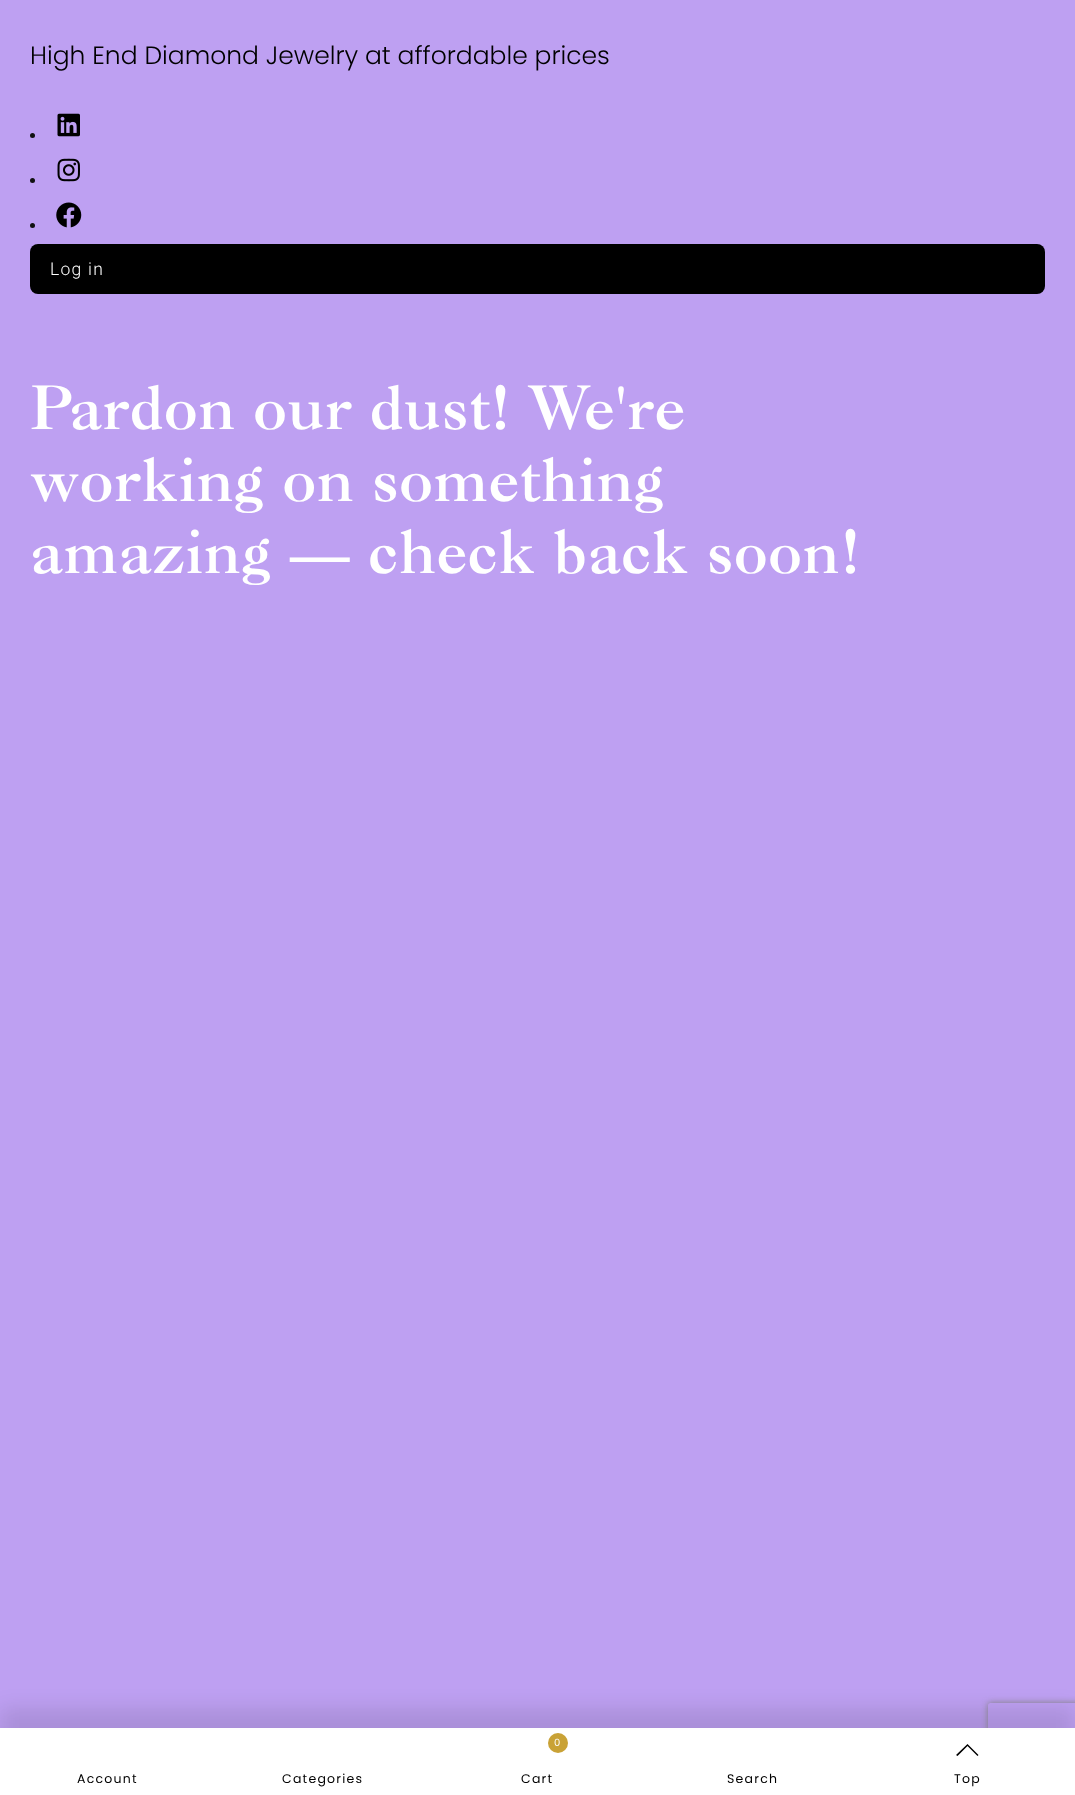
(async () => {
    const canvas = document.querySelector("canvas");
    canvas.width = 1075;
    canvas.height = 1795;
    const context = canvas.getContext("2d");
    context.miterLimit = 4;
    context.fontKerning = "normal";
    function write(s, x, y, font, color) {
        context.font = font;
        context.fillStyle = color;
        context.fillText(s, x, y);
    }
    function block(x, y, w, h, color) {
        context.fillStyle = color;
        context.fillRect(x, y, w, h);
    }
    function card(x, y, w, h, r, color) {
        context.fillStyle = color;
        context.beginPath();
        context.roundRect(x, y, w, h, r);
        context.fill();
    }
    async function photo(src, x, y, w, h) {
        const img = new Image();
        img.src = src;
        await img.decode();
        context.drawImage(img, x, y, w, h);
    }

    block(0, 0, 1075, 1795, "rgb(190, 160, 242)");
    write("High End Diamond Jewelry at affordable prices", 30, 64, "300 25px Poppins", "rgb(0, 0, 0)");
    context.fillStyle = "rgb(17, 17, 17)";
    context.beginPath();
    context.arc(32.5, 135.5, 2.5, 0, Math.PI * 2);
    context.fill();
    await photo("media/1.png", 57, 113, 23, 24);
    context.beginPath();
    context.arc(32.5, 180.5, 2.5, 0, Math.PI * 2);
    context.fill();
    await photo("media/2.png", 57, 158, 23, 24);
    context.beginPath();
    context.arc(32.5, 225.5, 2.5, 0, Math.PI * 2);
    context.fill();
    await photo("media/3.png", 56, 202, 26, 26);
    card(30, 244, 1015, 50, 8, "rgb(0, 0, 0)");
    context.letterSpacing = "1.25px";
    write("Log in", 50, 275, "300 17.5px Roboto", "rgb(255, 255, 255)");
    context.letterSpacing = "1.2px";
    write("Pardon our dust! We're", 30, 429, "bold 60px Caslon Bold", "rgb(255, 255, 255)");
    write("working on something", 30, 501, "bold 60px Caslon Bold", "rgb(255, 255, 255)");
    write("amazing — check back soon!", 30, 573, "bold 60px Caslon Bold", "rgb(255, 255, 255)");
    context.fillStyle = "rgba(0, 0, 0, 0.1)";
    context.filter = "blur(10px)";
    context.beginPath();
    context.rect(0, 1708, 1075, 67);
    context.fill();
    context.filter = "none";
    block(0, 1728, 645, 67, "rgb(255, 255, 255)");
    context.letterSpacing = "1.25px";
    write("Account", 77, 1783, "12.5px Poppins", "rgb(0, 0, 0)");
    write("Categories", 282, 1783, "12.5px Poppins", "rgb(0, 0, 0)");
    context.fillStyle = "rgb(201, 162, 54)";
    context.beginPath();
    context.arc(558, 1743, 10, 0, Math.PI * 2);
    context.fill();
    write("0", 554, 1746, "10px Poppins", "rgb(255, 255, 255)");
    write("Cart", 521, 1783, "12.5px Poppins", "rgb(0, 0, 0)");
    context.save();
    context.beginPath();
    context.moveTo(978, 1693);
    context.lineTo(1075, 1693);
    context.lineTo(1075, 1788);
    context.lineTo(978, 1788);
    context.closePath();
    context.moveTo(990.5, 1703);
    context.lineTo(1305.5, 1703);
    context.bezierCurveTo(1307, 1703, 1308, 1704, 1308, 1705.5);
    context.lineTo(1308, 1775.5);
    context.bezierCurveTo(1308, 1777, 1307, 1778, 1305.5, 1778);
    context.lineTo(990.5, 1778);
    context.bezierCurveTo(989, 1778, 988, 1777, 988, 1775.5);
    context.lineTo(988, 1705.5);
    context.bezierCurveTo(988, 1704, 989, 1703, 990.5, 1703);
    context.closePath();
    context.clip("evenodd");
    context.fillStyle = "rgb(128, 128, 128)";
    context.filter = "blur(3px)";
    context.beginPath();
    context.roundRect(988, 1703, 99, 75, 2.5);
    context.fill();
    context.filter = "none";
    context.restore();
    block(645, 1728, 430, 67, "rgb(255, 255, 255)");
    write("Search", 727, 1783, "12.5px Poppins", "rgb(0, 0, 0)");
    context.beginPath();
    context.moveTo(957.5, 1756);
    context.lineTo(967.5, 1746);
    context.lineTo(977.5, 1756);
    context.lineTo(978.5, 1755);
    context.lineTo(967.5, 1744);
    context.lineTo(956, 1755);
    context.closePath();
    context.fill();
    write("Top", 954, 1783, "12.5px Poppins", "rgb(0, 0, 0)");
})();
